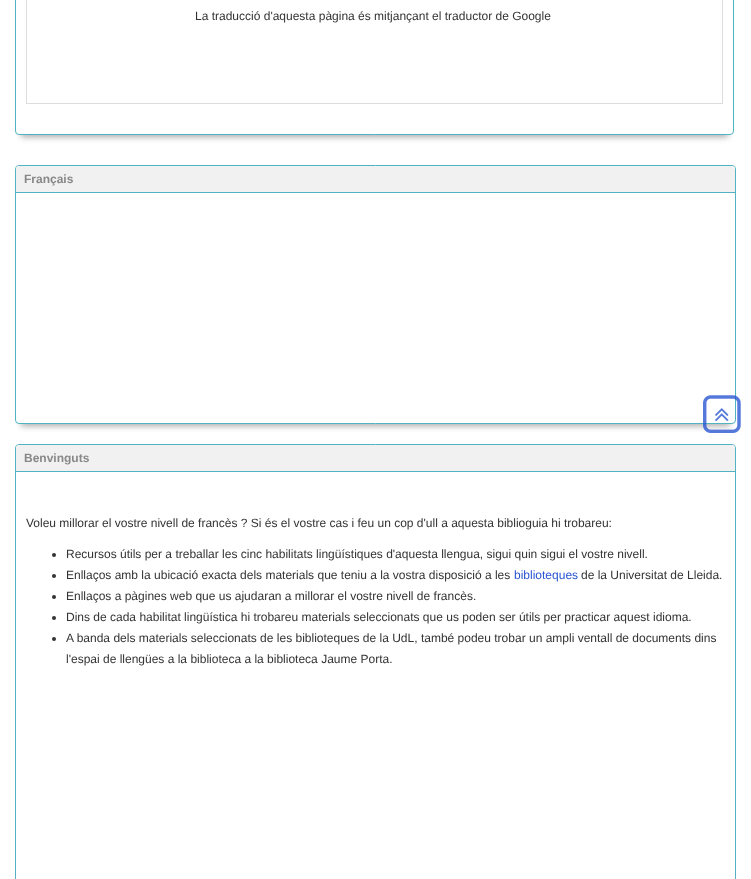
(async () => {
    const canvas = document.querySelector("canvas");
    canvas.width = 751;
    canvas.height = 879;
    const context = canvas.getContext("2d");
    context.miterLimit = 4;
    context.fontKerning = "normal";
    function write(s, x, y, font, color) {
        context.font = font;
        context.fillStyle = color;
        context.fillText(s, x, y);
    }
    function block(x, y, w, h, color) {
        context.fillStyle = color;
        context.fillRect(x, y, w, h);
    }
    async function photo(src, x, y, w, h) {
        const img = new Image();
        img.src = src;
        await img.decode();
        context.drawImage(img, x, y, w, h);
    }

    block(0, 0, 751, 879, "rgb(255, 255, 255)");
    context.fillStyle = "rgb(170, 170, 170)";
    context.filter = "blur(3px)";
    context.beginPath();
    context.rect(21, -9, 707, 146);
    context.fill();
    context.filter = "none";
    context.fillStyle = "rgb(255, 255, 255)";
    context.beginPath();
    context.roundRect(15.5, -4.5, 718, 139, 3.5);
    context.fill();
    context.strokeStyle = "rgb(81, 179, 194)";
    context.stroke();
    block(722, 0, 1, 104, "rgb(221, 221, 221)");
    block(26, 103, 697, 1, "rgb(221, 221, 221)");
    block(26, 0, 1, 104, "rgb(221, 221, 221)");
    write("La traducció d'aquesta pàgina és mitjançant el traductor de Google", 195, 20, "12px Liberation Sans", "rgb(51, 51, 51)");
    context.fillStyle = "rgb(170, 170, 170)";
    context.filter = "blur(3px)";
    context.beginPath();
    context.rect(21, 179, 709, 247);
    context.fill();
    context.filter = "none";
    context.fillStyle = "rgb(255, 255, 255)";
    context.beginPath();
    context.roundRect(15.5, 165.5, 720, 258, 3.5);
    context.fill();
    context.stroke();
    context.fillStyle = "rgb(241, 241, 241)";
    context.beginPath();
    context.roundRect(16, 166, 719, 27, [3, 3, 0, 0]);
    context.fill();
    block(16, 192, 719, 1, "rgb(81, 179, 194)");
    write("Français", 24, 183, "bold 12px Liberation Sans", "rgb(136, 136, 136)");
    context.beginPath();
    context.roundRect(15.5, 444.5, 720, 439, 3.5);
    context.stroke();
    context.fillStyle = "rgb(241, 241, 241)";
    context.beginPath();
    context.roundRect(16, 445, 719, 27, [3, 3, 0, 0]);
    context.fill();
    block(16, 471, 719, 1, "rgb(81, 179, 194)");
    write("Benvinguts", 24, 462, "bold 12px Liberation Sans", "rgb(136, 136, 136)");
    write("Voleu millorar el vostre nivell de francès ? Si és el vostre cas i feu un cop d'ull a aquesta biblioguia hi trobareu:", 26, 527, "12px Liberation Sans", "rgb(51, 51, 51)");
    context.beginPath();
    context.arc(54, 555, 2, 0, Math.PI * 2);
    context.fill();
    write("Recursos útils per a treballar les cinc habilitats lingüístiques d'aquesta llengua, sigui quin sigui el vostre nivell.", 66, 558, "12px Liberation Sans", "rgb(51, 51, 51)");
    context.beginPath();
    context.arc(54, 576, 2, 0, Math.PI * 2);
    context.fill();
    write("Enllaços amb la ubicació exacta dels materials que teniu a la vostra disposició a les", 66, 579, "12px Liberation Sans", "rgb(51, 51, 51)");
    write("biblioteques", 514, 579, "12px Liberation Sans", "rgb(41, 84, 209)");
    write("de la Universitat de Lleida.", 581, 579, "12px Liberation Sans", "rgb(51, 51, 51)");
    context.beginPath();
    context.arc(54, 597, 2, 0, Math.PI * 2);
    context.fill();
    write("Enllaços a pàgines web que us ajudaran a millorar el vostre nivell de francès.", 66, 600, "12px Liberation Sans", "rgb(51, 51, 51)");
    context.beginPath();
    context.arc(54, 618, 2, 0, Math.PI * 2);
    context.fill();
    write("Dins de cada habilitat lingüística hi trobareu materials seleccionats que us poden ser útils per practicar aquest idioma.", 66, 621, "12px Liberation Sans", "rgb(51, 51, 51)");
    context.beginPath();
    context.arc(54, 639, 2, 0, Math.PI * 2);
    context.fill();
    write("A banda dels materials seleccionats de les biblioteques de la UdL, també podeu trobar un ampli ventall de documents dins", 66, 642, "12px Liberation Sans", "rgb(51, 51, 51)");
    write("l'espai de llengües a la biblioteca a la biblioteca Jaume Porta.", 66, 663, "12px Liberation Sans", "rgb(51, 51, 51)");
    await photo("media/1.png", 703, 395, 38, 38);
    await photo("media/2.png", 715, 408, 14, 14);
})();
